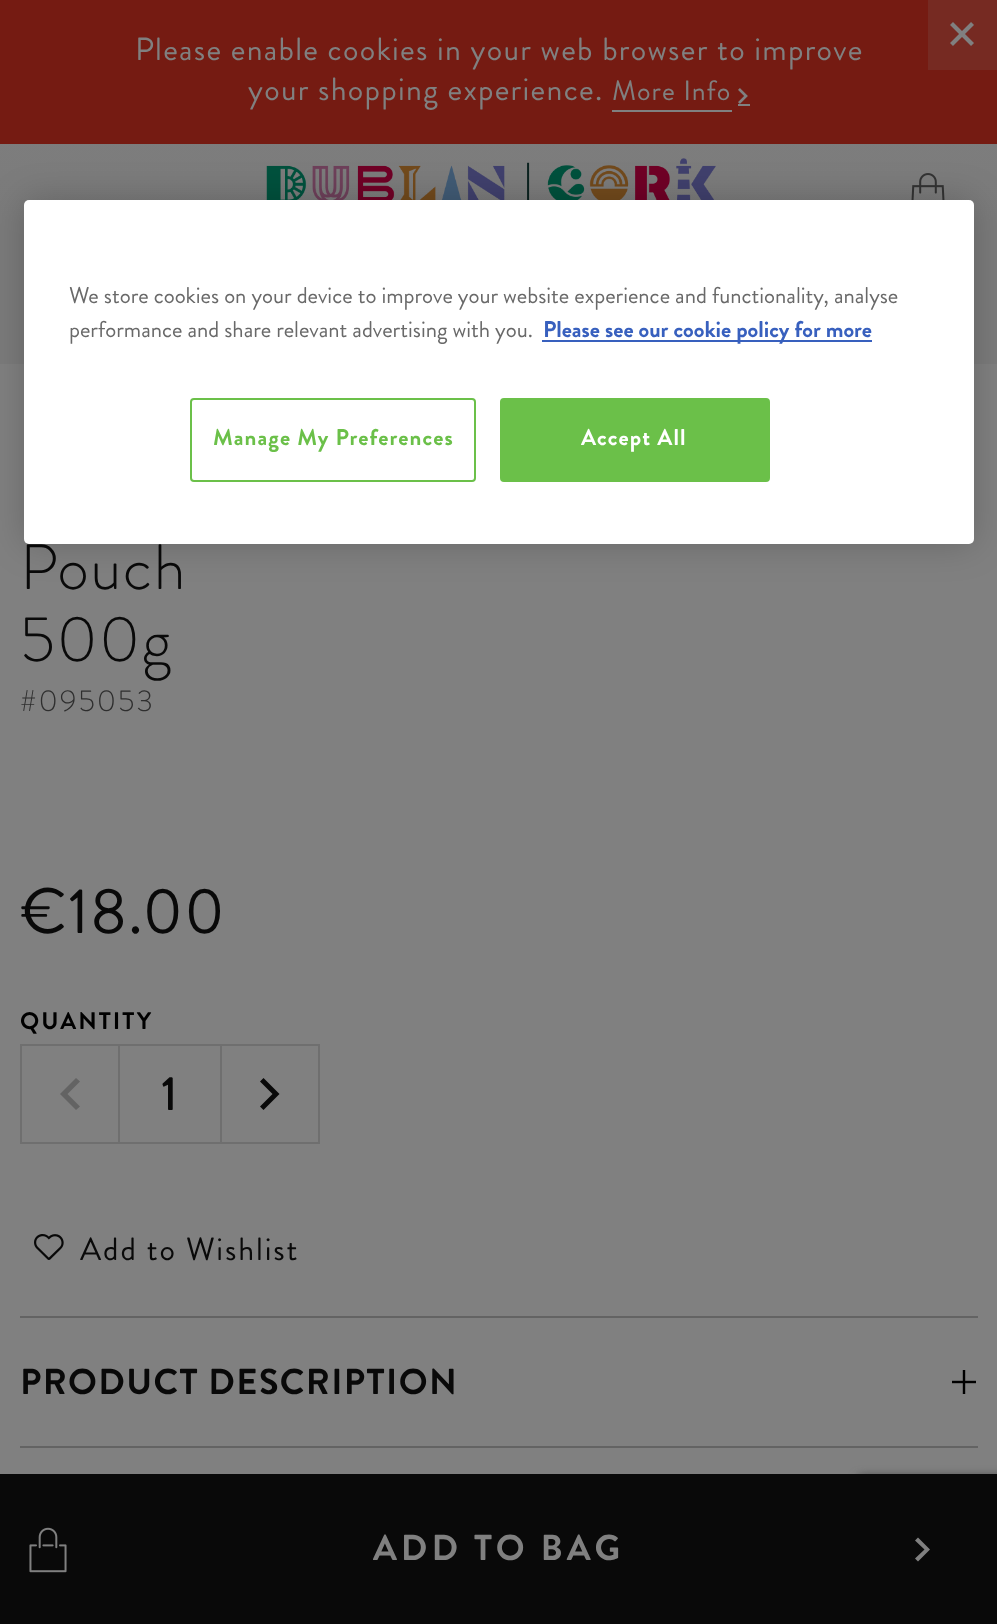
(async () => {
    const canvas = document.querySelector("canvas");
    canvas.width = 997;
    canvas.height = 1624;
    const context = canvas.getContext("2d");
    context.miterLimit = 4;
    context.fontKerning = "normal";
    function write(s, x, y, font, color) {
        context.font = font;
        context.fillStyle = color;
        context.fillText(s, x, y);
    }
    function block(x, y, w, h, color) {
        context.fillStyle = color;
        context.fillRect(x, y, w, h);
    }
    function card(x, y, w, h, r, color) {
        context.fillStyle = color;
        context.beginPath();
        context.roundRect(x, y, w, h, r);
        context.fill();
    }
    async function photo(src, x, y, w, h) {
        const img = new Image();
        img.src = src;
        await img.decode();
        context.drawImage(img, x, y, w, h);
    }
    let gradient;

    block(0, 0, 997, 1624, "rgb(128, 128, 128)");
    block(0, 0, 997, 144, "rgb(117, 27, 18)");
    context.letterSpacing = "1.28px";
    write("Please enable cookies in your web browser to improve", 135, 60, "32px Brandon Grotesque", "rgb(128, 128, 128)");
    write("your shopping experience.", 248, 100, "32px Brandon Grotesque", "rgb(128, 128, 128)");
    block(612, 110, 120, 2, "rgb(128, 128, 128)");
    block(738, 104, 12, 2, "rgb(128, 128, 128)");
    context.letterSpacing = "1.1px";
    write("More Info", 612, 100, "28px Brandon Grotesque", "rgb(128, 128, 128)");
    await photo("media/1.png", 738, 88, 10, 16);
    block(928, 0, 69, 70, "rgb(118, 42, 34)");
    await photo("media/2.png", 950, 22, 24, 24);
    context.letterSpacing = "1.5px";
    write("Pouch", 20, 589, "300 64px Brandon Grotesque", "rgb(9, 9, 9)");
    write("500g", 20, 661, "300 64px Brandon Grotesque", "rgb(9, 9, 9)");
    context.letterSpacing = "2px";
    write("#095053", 20, 711, "300 30px Brandon Grotesque", "rgb(46, 46, 46)");
    context.letterSpacing = "1.28px";
    write("€18.00", 20, 933, "64px Brandon Grotesque", "rgb(9, 9, 9)");
    context.letterSpacing = "2px";
    write("QUANTITY", 20, 1029, "bold 24px Brandon Grotesque", "rgb(0, 0, 0)");
    context.strokeStyle = "rgb(111, 111, 111)";
    context.lineWidth = 2;
    context.strokeRect(21, 1045, 98, 98);
    context.fillStyle = "rgb(99, 99, 99)";
    context.beginPath();
    context.moveTo(76, 1078);
    context.lineTo(80, 1081.5);
    context.lineTo(67.5, 1094);
    context.lineTo(80, 1106.5);
    context.lineTo(76, 1110);
    context.lineTo(60, 1094);
    context.closePath();
    context.fill();
    block(120, 1044, 100, 2, "rgb(111, 111, 111)");
    block(120, 1142, 100, 2, "rgb(111, 111, 111)");
    context.letterSpacing = "1.9px";
    write("1", 161, 1110, "500 48px Brandon Grotesque", "rgb(9, 9, 9)");
    context.strokeRect(221, 1045, 98, 98);
    context.beginPath();
    context.moveTo(263.5, 1078);
    context.lineTo(260, 1081.5);
    context.lineTo(272.5, 1094);
    context.lineTo(260, 1106.5);
    context.lineTo(263.5, 1110);
    context.lineTo(279.5, 1094);
    context.closePath();
    context.fill();
    context.fillStyle = "rgb(64, 64, 64)";
    context.filter = "blur(5px)";
    context.beginPath();
    context.roundRect(858, 1476, 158, 120, 4);
    context.fill();
    context.filter = "none";
    block(0, 1474, 997, 150, "rgb(9, 9, 9)");
    await photo("media/3.png", 29, 1527, 38, 46);
    context.letterSpacing = "4px";
    write("ADD TO BAG", 373, 1560, "bold 36px Brandon Grotesque", "rgb(128, 128, 128)");
    context.beginPath();
    context.moveTo(915, 1558.5);
    context.lineTo(924.5, 1549.5);
    context.lineTo(915, 1540.5);
    context.lineTo(918, 1537.5);
    context.lineTo(930, 1549.5);
    context.lineTo(918, 1561.5);
    context.closePath();
    context.fill();
    await photo("media/4.png", 34, 1234, 30, 26);
    context.letterSpacing = "1.9px";
    write("Add to Wishlist", 80, 1260, "32px Brandon Grotesque", "rgb(9, 9, 9)");
    block(20, 1316, 958, 2, "rgb(99, 99, 99)");
    block(20, 1446, 958, 2, "rgb(99, 99, 99)");
    context.letterSpacing = "1.4px";
    write("PRODUCT DESCRIPTION", 20, 1394, "bold 36px Brandon Grotesque", "rgb(9, 9, 9)");
    await photo("media/5.png", 952, 1370, 24, 24);
    gradient = context.createLinearGradient(499, 364, 499, 0);
    gradient.addColorStop(0.39, "rgb(123, 123, 123)");
    gradient.addColorStop(1, "rgb(128, 128, 128)");
    context.fillStyle = gradient;
    context.fillRect(0, 144, 997, 220);
    await photo("media/6.png", 266, 158, 450, 42);
    await photo("media/7.png", 911, 173, 34, 27);
    context.fillStyle = "rgba(0, 0, 0, 0.2)";
    context.filter = "blur(18px)";
    context.beginPath();
    context.roundRect(24, 200, 950, 344, 5);
    context.fill();
    context.filter = "none";
    card(24, 200, 950, 344, 5, "rgb(255, 255, 255)");
    context.letterSpacing = "0px";
    write("We store cookies on your device to improve your website experience and functionality, analyse", 69, 303, "22.75px Brandon Grotesque", "rgb(105, 105, 105)");
    write("performance and share relevant advertising with you.", 69, 337, "22.75px Brandon Grotesque", "rgb(105, 105, 105)");
    block(542, 340, 330, 2, "rgb(56, 96, 190)");
    write("Please see our cookie policy for more", 543, 337, "bold 22.75px Brandon Grotesque", "rgb(56, 96, 190)");
    context.beginPath();
    context.roundRect(191, 399, 284, 82, 3);
    context.strokeStyle = "rgb(107, 192, 73)";
    context.stroke();
    context.letterSpacing = "1.1px";
    write("Manage My Preferences", 213, 445, "bold 22.75px Brandon Grotesque", "rgb(107, 192, 73)");
    context.beginPath();
    context.roundRect(501, 399, 268, 82, 3);
    context.fill();
    context.stroke();
    write("Accept All", 581, 445, "bold 22.75px Brandon Grotesque", "rgb(255, 255, 255)");
})();
